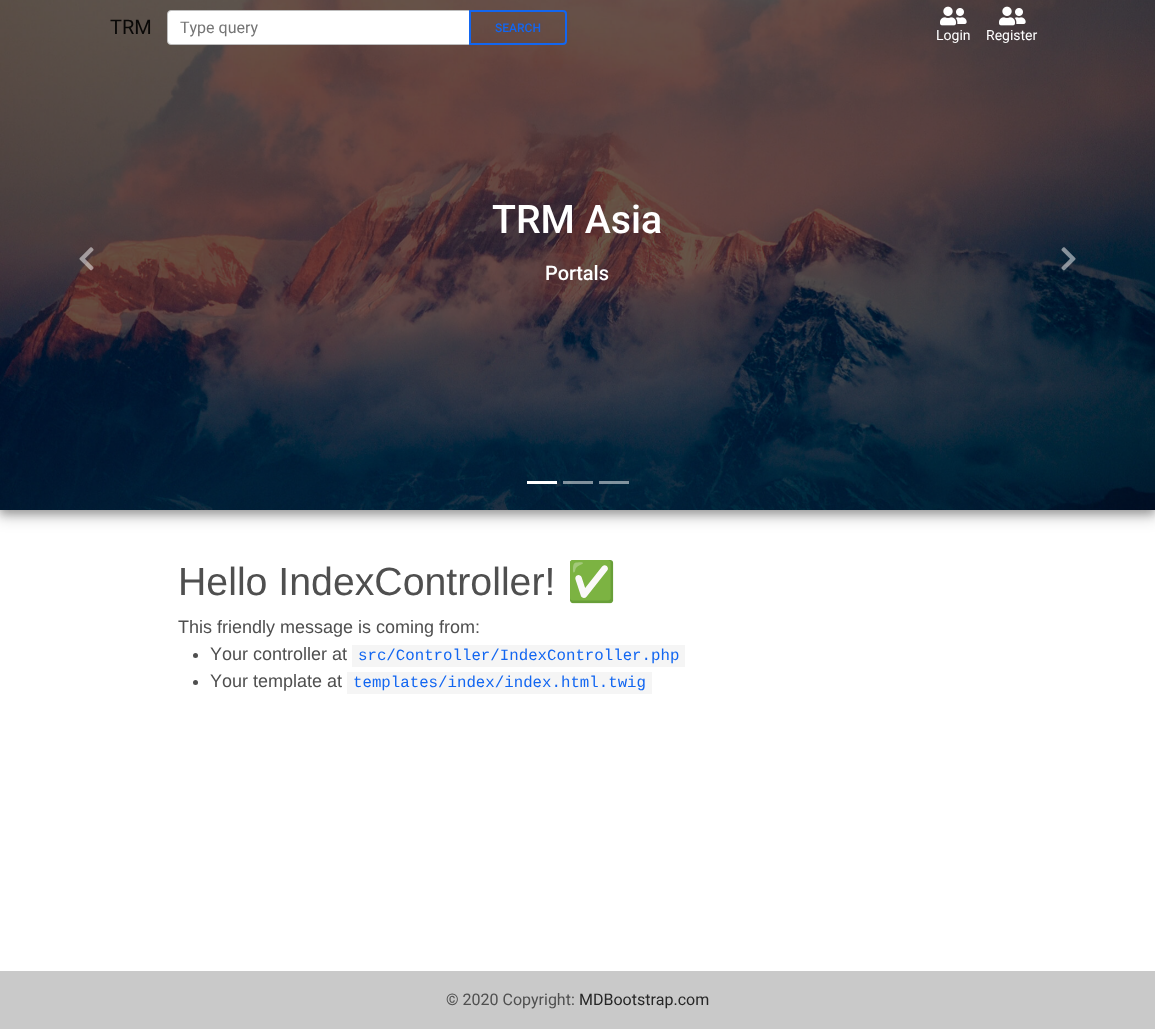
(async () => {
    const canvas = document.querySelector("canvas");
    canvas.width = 1155;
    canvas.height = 1029;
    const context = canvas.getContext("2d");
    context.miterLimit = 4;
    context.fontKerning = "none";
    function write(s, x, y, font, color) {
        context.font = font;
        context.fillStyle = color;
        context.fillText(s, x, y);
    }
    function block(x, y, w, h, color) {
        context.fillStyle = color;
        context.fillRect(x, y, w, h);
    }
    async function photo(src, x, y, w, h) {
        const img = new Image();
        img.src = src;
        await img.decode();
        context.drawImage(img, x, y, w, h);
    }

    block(0, 0, 1155, 1029, "rgb(255, 255, 255)");
    context.fillStyle = "rgba(0, 0, 0, 0.2)";
    context.filter = "blur(7.5px)";
    context.beginPath();
    context.rect(-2, -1, 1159, 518);
    context.fill();
    context.filter = "none";
    context.fillStyle = "rgba(0, 0, 0, 0.25)";
    context.filter = "blur(4px)";
    context.beginPath();
    context.rect(0, 0, 1155, 514);
    context.fill();
    context.filter = "none";
    await photo("media/4.png", 0, 0, 1155, 510);
    write("TRM", 110, 34, "20px Roboto", "rgb(9, 8, 7)");
    context.fillStyle = "rgb(255, 255, 255)";
    context.beginPath();
    context.roundRect(167.5, 10.5, 302, 34, [3.5, 0, 0, 3.5]);
    context.fill();
    context.strokeStyle = "rgb(189, 189, 189)";
    context.stroke();
    write("Type query", 180, 33, "16px Roboto", "rgb(117, 117, 117)");
    context.beginPath();
    context.roundRect(470, 11, 96, 33, [0, 3, 3, 0]);
    context.strokeStyle = "rgb(18, 102, 241)";
    context.lineWidth = 2;
    context.stroke();
    write("SEARCH", 495, 32, "500 12px Roboto", "rgb(18, 102, 241)");
    await photo("media/1.png", 940, 6, 27, 20);
    write("Login", 936, 40, "14px Roboto", "rgb(255, 255, 255)");
    await photo("media/2.png", 999, 6, 27, 20);
    write("Register", 986, 40, "14px Roboto", "rgb(255, 255, 255)");
    await photo("media/3.png", 79, 247, 15, 24);
    write("TRM Asia", 492, 233, "500 39.25px Roboto", "rgb(255, 255, 255)");
    write("Portals", 545, 280, "500 20px Roboto", "rgb(255, 255, 255)");
    await photo("media/5.png", 1061, 247, 15, 24);
    block(527, 481, 30, 3, "rgb(255, 255, 255)");
    block(563, 481, 30, 3, "rgba(255, 255, 255, 0.5)");
    block(599, 481, 30, 3, "rgba(255, 255, 255, 0.5)");
    write("Hello IndexController!", 178, 595, "39.25px Liberation Sans", "rgb(79, 79, 79)");
    write("✅", 567, 595, "39.25px Noto Color Emoji", "rgb(79, 79, 79)");
    write("This friendly message is coming from:", 178, 633, "18px Liberation Sans", "rgb(79, 79, 79)");
    context.beginPath();
    context.arc(195.5, 655.5, 2.5, 0, Math.PI * 2);
    context.fill();
    write("Your controller at", 210, 660, "18px Liberation Sans", "rgb(79, 79, 79)");
    block(352, 645, 333, 22, "rgb(245, 245, 245)");
    write("src/Controller/IndexController.php", 358, 660, "15.75px Liberation Mono", "rgb(18, 102, 241)");
    context.fillStyle = "rgb(79, 79, 79)";
    context.beginPath();
    context.arc(195.5, 682.5, 2.5, 0, Math.PI * 2);
    context.fill();
    write("Your template at", 210, 687, "18px Liberation Sans", "rgb(79, 79, 79)");
    block(347, 672, 305, 22, "rgb(245, 245, 245)");
    write("templates/index/index.html.twig", 353, 687, "15.75px Liberation Mono", "rgb(18, 102, 241)");
    block(0, 971, 1155, 58, "rgb(201, 201, 201)");
    write("© 2020 Copyright:", 446, 1005, "16px Roboto", "rgb(79, 79, 79)");
    write("MDBootstrap.com", 579, 1005, "16px Roboto", "rgb(38, 38, 38)");
})();
